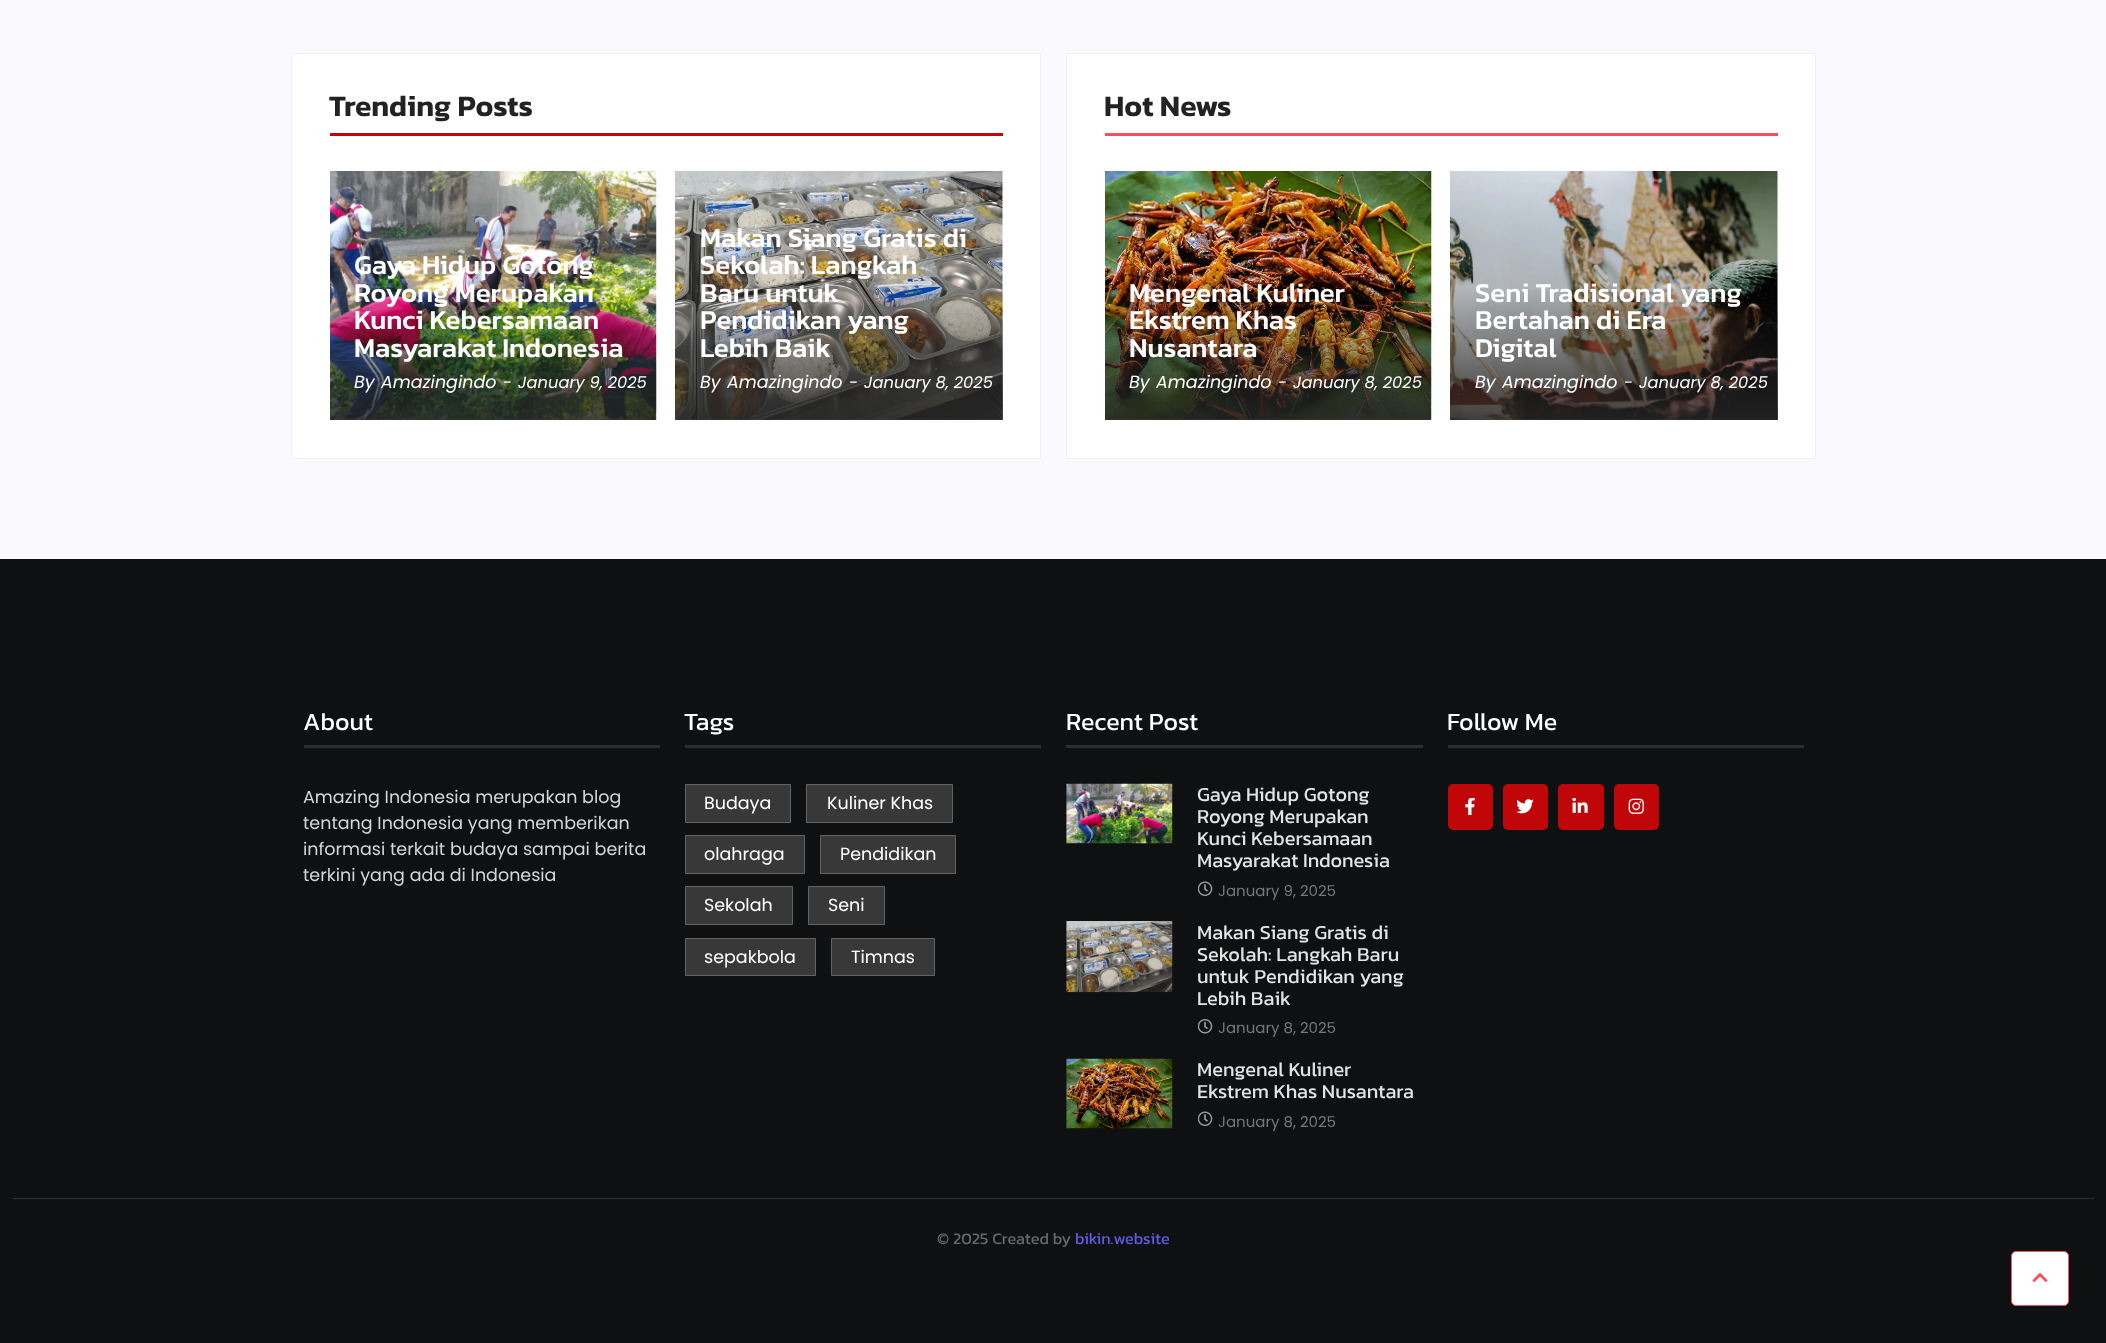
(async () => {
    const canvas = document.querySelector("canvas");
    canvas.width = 2106;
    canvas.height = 1343;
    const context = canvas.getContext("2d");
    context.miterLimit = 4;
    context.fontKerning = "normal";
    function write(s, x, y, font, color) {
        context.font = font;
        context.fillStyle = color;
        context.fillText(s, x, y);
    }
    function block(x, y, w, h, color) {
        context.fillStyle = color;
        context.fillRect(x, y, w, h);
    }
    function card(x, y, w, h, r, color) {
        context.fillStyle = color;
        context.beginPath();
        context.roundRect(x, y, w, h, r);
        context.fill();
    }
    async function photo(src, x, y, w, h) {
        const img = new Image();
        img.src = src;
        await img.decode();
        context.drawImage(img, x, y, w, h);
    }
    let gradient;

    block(0, 0, 2106, 1343, "rgb(249, 249, 254)");
    context.fillStyle = "rgb(255, 255, 255)";
    context.beginPath();
    context.rect(291.5, 53.5, 749, 405);
    context.fill();
    context.strokeStyle = "rgb(238, 238, 252)";
    context.stroke();
    write("Trending Posts", 329, 116, "600 30px Kanit", "rgb(34, 34, 34)");
    block(330, 133, 673, 3, "rgb(192, 6, 9)");
    await photo("media/1.png", 330, 171, 327, 249);
    write("Gaya Hidup Gotong", 354, 274, "500 27.5px Kanit", "rgb(255, 255, 255)");
    gradient = context.createLinearGradient(493, 171, 493, 420);
    gradient.addColorStop(0.46, "rgba(37, 37, 37, 0)");
    gradient.addColorStop(1, "rgba(37, 37, 37, 0.85)");
    context.fillStyle = gradient;
    context.fillRect(330, 289, 326, 131);
    write("Royong Merupakan", 354, 302, "500 27.5px Kanit", "rgb(255, 255, 255)");
    write("Kunci Kebersamaan", 354, 329, "500 27.5px Kanit", "rgb(255, 255, 255)");
    write("Masyarakat Indonesia", 354, 357, "500 27.5px Kanit", "rgb(255, 255, 255)");
    write("By", 354, 388, "italic 17.5px Poppins", "rgb(255, 255, 255)");
    write("Amazingindo", 381, 388, "italic 17.5px Poppins", "rgb(255, 255, 255)");
    write("-", 503, 388, "italic 16.25px Poppins", "rgb(255, 255, 255)");
    write("January 9, 2025", 518, 388, "italic 16.25px Poppins", "rgb(255, 255, 255)");
    await photo("media/2.png", 675, 171, 328, 249);
    write("Makan Siang Gratis di", 700, 247, "500 27.5px Kanit", "rgb(255, 255, 255)");
    write("Sekolah: Langkah", 700, 274, "500 27.5px Kanit", "rgb(255, 255, 255)");
    gradient = context.createLinearGradient(839, 171, 839, 420);
    gradient.addColorStop(0.46, "rgba(37, 37, 37, 0)");
    gradient.addColorStop(1, "rgba(37, 37, 37, 0.85)");
    context.fillStyle = gradient;
    context.fillRect(675, 289, 328, 131);
    write("Baru untuk", 700, 302, "500 27.5px Kanit", "rgb(255, 255, 255)");
    write("Pendidikan yang", 700, 329, "500 27.5px Kanit", "rgb(255, 255, 255)");
    write("Lebih Baik", 700, 357, "500 27.5px Kanit", "rgb(255, 255, 255)");
    write("By", 700, 388, "italic 17.5px Poppins", "rgb(255, 255, 255)");
    write("Amazingindo", 727, 388, "italic 17.5px Poppins", "rgb(255, 255, 255)");
    write("-", 849, 388, "italic 16.25px Poppins", "rgb(255, 255, 255)");
    write("January 8, 2025", 864, 388, "italic 16.25px Poppins", "rgb(255, 255, 255)");
    context.beginPath();
    context.rect(1066.5, 53.5, 749, 405);
    context.fill();
    context.stroke();
    write("Hot News", 1104, 116, "600 30px Kanit", "rgb(34, 34, 34)");
    block(1105, 133, 673, 3, "rgb(255, 76, 96)");
    await photo("media/3.png", 1105, 171, 327, 249);
    gradient = context.createLinearGradient(1268, 171, 1268, 420);
    gradient.addColorStop(0.46, "rgba(37, 37, 37, 0)");
    gradient.addColorStop(1, "rgba(37, 37, 37, 0.85)");
    context.fillStyle = gradient;
    context.fillRect(1105, 289, 326, 131);
    write("Mengenal Kuliner", 1129, 302, "500 27.5px Kanit", "rgb(255, 255, 255)");
    write("Ekstrem Khas", 1129, 329, "500 27.5px Kanit", "rgb(255, 255, 255)");
    write("Nusantara", 1129, 357, "500 27.5px Kanit", "rgb(255, 255, 255)");
    write("By", 1129, 388, "italic 17.5px Poppins", "rgb(255, 255, 255)");
    write("Amazingindo", 1156, 388, "italic 17.5px Poppins", "rgb(255, 255, 255)");
    write("-", 1278, 388, "italic 16.25px Poppins", "rgb(255, 255, 255)");
    write("January 8, 2025", 1293, 388, "italic 16.25px Poppins", "rgb(255, 255, 255)");
    await photo("media/4.png", 1450, 171, 328, 249);
    gradient = context.createLinearGradient(1614, 171, 1614, 420);
    gradient.addColorStop(0.46, "rgba(37, 37, 37, 0)");
    gradient.addColorStop(1, "rgba(37, 37, 37, 0.85)");
    context.fillStyle = gradient;
    context.fillRect(1450, 289, 328, 131);
    write("Seni Tradisional yang", 1475, 302, "500 27.5px Kanit", "rgb(255, 255, 255)");
    write("Bertahan di Era", 1475, 329, "500 27.5px Kanit", "rgb(255, 255, 255)");
    write("Digital", 1475, 357, "500 27.5px Kanit", "rgb(255, 255, 255)");
    write("By", 1475, 388, "italic 17.5px Poppins", "rgb(255, 255, 255)");
    write("Amazingindo", 1502, 388, "italic 17.5px Poppins", "rgb(255, 255, 255)");
    write("-", 1624, 388, "italic 16.25px Poppins", "rgb(255, 255, 255)");
    write("January 8, 2025", 1639, 388, "italic 16.25px Poppins", "rgb(255, 255, 255)");
    block(0, 559, 2106, 784, "rgb(15, 16, 18)");
    write("About", 303, 730, "25px Kanit", "rgb(255, 255, 255)");
    block(304, 745, 356, 3, "rgb(44, 46, 51)");
    write("Amazing Indonesia merupakan blog", 303, 803, "17.5px Poppins", "rgb(213, 213, 213)");
    write("tentang Indonesia yang memberikan", 303, 829, "17.5px Poppins", "rgb(213, 213, 213)");
    write("informasi terkait budaya sampai berita", 303, 855, "17.5px Poppins", "rgb(213, 213, 213)");
    write("terkini yang ada di Indonesia", 303, 881, "17.5px Poppins", "rgb(213, 213, 213)");
    write("Tags", 684, 730, "25px Kanit", "rgb(255, 255, 255)");
    block(685, 745, 356, 3, "rgb(44, 46, 51)");
    context.fillStyle = "rgb(56, 56, 56)";
    context.beginPath();
    context.rect(685.5, 784.5, 105, 38);
    context.fill();
    context.strokeStyle = "rgb(99, 99, 99)";
    context.stroke();
    write("Budaya", 704, 809, "17.5px Poppins", "rgb(255, 255, 255)");
    context.fillStyle = "rgb(56, 56, 56)";
    context.beginPath();
    context.rect(806.5, 784.5, 146, 38);
    context.fill();
    context.stroke();
    write("Kuliner Khas", 827, 809, "17.5px Poppins", "rgb(255, 255, 255)");
    context.fillStyle = "rgb(56, 56, 56)";
    context.beginPath();
    context.rect(685.5, 835.5, 119, 38);
    context.fill();
    context.stroke();
    write("olahraga", 704, 860, "17.5px Poppins", "rgb(255, 255, 255)");
    context.fillStyle = "rgb(56, 56, 56)";
    context.beginPath();
    context.rect(820.5, 835.5, 135, 38);
    context.fill();
    context.stroke();
    write("Pendidikan", 840, 860, "17.5px Poppins", "rgb(255, 255, 255)");
    context.fillStyle = "rgb(56, 56, 56)";
    context.beginPath();
    context.rect(685.5, 886.5, 107, 38);
    context.fill();
    context.stroke();
    write("Sekolah", 704, 911, "17.5px Poppins", "rgb(255, 255, 255)");
    context.fillStyle = "rgb(56, 56, 56)";
    context.beginPath();
    context.rect(808.5, 886.5, 76, 38);
    context.fill();
    context.stroke();
    write("Seni", 828, 911, "17.5px Poppins", "rgb(255, 255, 255)");
    context.fillStyle = "rgb(56, 56, 56)";
    context.beginPath();
    context.rect(685.5, 938.5, 130, 37);
    context.fill();
    context.stroke();
    write("sepakbola", 704, 963, "17.5px Poppins", "rgb(255, 255, 255)");
    context.fillStyle = "rgb(56, 56, 56)";
    context.beginPath();
    context.rect(831.5, 938.5, 103, 37);
    context.fill();
    context.stroke();
    write("Timnas", 851, 963, "17.5px Poppins", "rgb(255, 255, 255)");
    write("Recent Post", 1066, 730, "25px Kanit", "rgb(255, 255, 255)");
    block(1066, 745, 357, 3, "rgb(44, 46, 51)");
    await photo("media/5.png", 1066, 783, 107, 61);
    write("Gaya Hidup Gotong", 1197, 801, "20px Kanit", "rgb(228, 228, 228)");
    write("Royong Merupakan", 1197, 823, "20px Kanit", "rgb(228, 228, 228)");
    write("Kunci Kebersamaan", 1197, 845, "20px Kanit", "rgb(228, 228, 228)");
    write("Masyarakat Indonesia", 1197, 867, "20px Kanit", "rgb(228, 228, 228)");
    await photo("media/6.png", 1198, 881, 15, 15);
    write("January 9, 2025", 1218, 896, "15px Poppins", "rgb(119, 119, 119)");
    await photo("media/7.png", 1066, 921, 107, 72);
    write("Makan Siang Gratis di", 1197, 939, "20px Kanit", "rgb(228, 228, 228)");
    write("Sekolah: Langkah Baru", 1197, 961, "20px Kanit", "rgb(228, 228, 228)");
    write("untuk Pendidikan yang", 1197, 983, "20px Kanit", "rgb(228, 228, 228)");
    write("Lebih Baik", 1197, 1005, "20px Kanit", "rgb(228, 228, 228)");
    await photo("media/8.png", 1198, 1019, 15, 15);
    write("January 8, 2025", 1218, 1033, "15px Poppins", "rgb(119, 119, 119)");
    await photo("media/9.png", 1066, 1058, 107, 71);
    write("Mengenal Kuliner", 1197, 1076, "20px Kanit", "rgb(228, 228, 228)");
    write("Ekstrem Khas Nusantara", 1197, 1098, "20px Kanit", "rgb(228, 228, 228)");
    await photo("media/6.png", 1198, 1111, 15, 15);
    write("January 8, 2025", 1218, 1127, "15px Poppins", "rgb(119, 119, 119)");
    write("Follow Me", 1447, 730, "25px Kanit", "rgb(255, 255, 255)");
    block(1448, 745, 356, 3, "rgb(44, 46, 51)");
    card(1448, 784, 45, 46, 5, "rgb(192, 6, 9)");
    await photo("media/10.png", 1465, 798, 10, 17);
    card(1503, 784, 45, 46, 5, "rgb(192, 6, 9)");
    await photo("media/11.png", 1516, 799, 18, 15);
    card(1558, 784, 46, 46, 5, "rgb(192, 6, 9)");
    await photo("media/12.png", 1572, 798, 16, 15);
    card(1614, 784, 45, 46, 5, "rgb(192, 6, 9)");
    await photo("media/13.png", 1628, 798, 16, 16);
    block(13, 1198, 2081, 1, "rgb(48, 48, 48)");
    write("© 2025 Created by", 937, 1244, "16.25px Kanit", "rgb(104, 104, 104)");
    write("bikin.website", 1075, 1244, "16.25px Kanit", "rgb(96, 91, 229)");
    context.fillStyle = "rgb(255, 255, 255)";
    context.beginPath();
    context.roundRect(2011.5, 1251.5, 57, 54, 4.5);
    context.fill();
    context.strokeStyle = "rgb(255, 76, 96)";
    context.stroke();
    await photo("media/14.png", 2032, 1273, 16, 9);
})();
